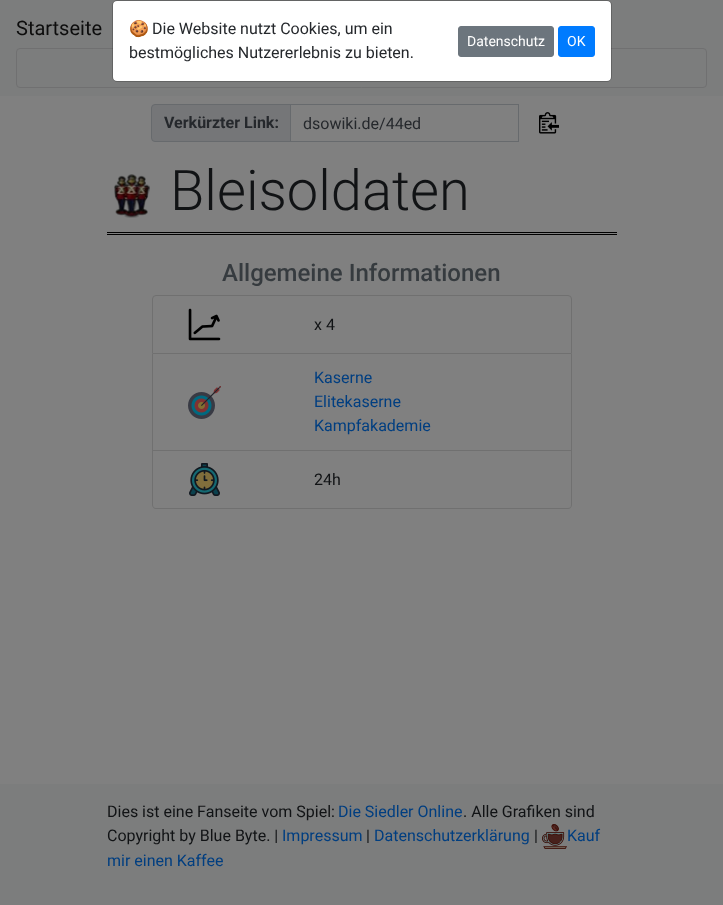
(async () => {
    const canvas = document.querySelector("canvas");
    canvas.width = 723;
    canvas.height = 905;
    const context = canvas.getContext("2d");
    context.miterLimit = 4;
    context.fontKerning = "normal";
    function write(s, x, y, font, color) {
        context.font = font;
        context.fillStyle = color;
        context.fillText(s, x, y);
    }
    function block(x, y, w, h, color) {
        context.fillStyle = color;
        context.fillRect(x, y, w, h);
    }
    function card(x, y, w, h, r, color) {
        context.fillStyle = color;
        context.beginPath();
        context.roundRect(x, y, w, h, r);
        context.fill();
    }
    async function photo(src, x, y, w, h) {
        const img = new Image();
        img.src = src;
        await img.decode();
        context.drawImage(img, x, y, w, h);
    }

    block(0, 0, 723, 905, "rgb(128, 128, 128)");
    block(0, 0, 723, 96, "rgb(124, 125, 125)");
    write("Startseite", 16, 35, "20px Roboto", "rgb(13, 13, 13)");
    context.beginPath();
    context.roundRect(16.5, 48.5, 690, 39, 3.5);
    context.strokeStyle = "rgb(112, 112, 113)";
    context.stroke();
    card(113, 1, 498, 80, 4, "rgb(255, 255, 255)");
    context.beginPath();
    context.roundRect(112.5, 0.5, 499, 81, 4.5);
    context.strokeStyle = "rgba(0, 0, 0, 0.2)";
    context.stroke();
    write("🍪", 129, 34, "16px Noto Color Emoji", "rgb(37, 40, 44)");
    write("Die Website nutzt Cookies, um ein", 152, 34, "16px Roboto", "rgb(37, 40, 44)");
    write("bestmögliches Nutzererlebnis zu bieten.", 129, 58, "16px Roboto", "rgb(37, 40, 44)");
    context.fillStyle = "rgb(108, 117, 125)";
    context.beginPath();
    context.roundRect(458.5, 26.5, 95, 30, 2.5);
    context.fill();
    context.strokeStyle = "rgb(108, 117, 125)";
    context.stroke();
    write("Datenschutz", 467, 46, "14px Roboto", "rgb(255, 255, 255)");
    context.fillStyle = "rgb(0, 123, 255)";
    context.beginPath();
    context.roundRect(558.5, 26.5, 36, 30, 2.5);
    context.fill();
    context.strokeStyle = "rgb(0, 123, 255)";
    context.stroke();
    write("OK", 567, 46, "14px Roboto", "rgb(255, 255, 255)");
    context.fillStyle = "rgb(117, 118, 120)";
    context.beginPath();
    context.roundRect(151.5, 104.5, 139, 37, [3.5, 0, 0, 3.5]);
    context.fill();
    context.strokeStyle = "rgb(103, 106, 109)";
    context.stroke();
    write("Verkürzter Link:", 164, 128, "bold 16px Roboto", "rgb(37, 40, 44)");
    context.strokeRect(290.5, 104.5, 228, 37);
    write("dsowiki.de/44ed", 303, 129, "16px Roboto", "rgb(37, 40, 44)");
    await photo("media/1.png", 539, 112, 20, 22);
    block(107, 232, 510, 1, "rgb(0, 0, 0)");
    block(107, 234, 510, 1, "rgb(0, 0, 0)");
    await photo("media/2.png", 114, 174, 36, 44);
    write("Bleisoldaten", 170, 210, "300 56px Roboto", "rgb(17, 19, 21)");
    write("Allgemeine Informationen", 222, 281, "500 24px Roboto", "rgb(54, 59, 63)");
    context.beginPath();
    context.roundRect(152.5, 295.5, 419, 58, [3.5, 3.5, 0, 0]);
    context.strokeStyle = "rgb(112, 112, 112)";
    context.stroke();
    await photo("media/3.png", 188, 308, 33, 33);
    write("x 4", 314, 330, "16px Roboto", "rgb(17, 19, 21)");
    context.fillStyle = "rgb(112, 112, 112)";
    context.beginPath();
    context.moveTo(572, 354);
    context.lineTo(572, 451);
    context.lineTo(571, 450);
    context.lineTo(571, 354);
    context.closePath();
    context.fill();
    context.fillStyle = "rgba(0, 0, 0, 0.12)";
    context.beginPath();
    context.moveTo(572, 451);
    context.lineTo(152, 451);
    context.lineTo(153, 450);
    context.lineTo(571, 450);
    context.closePath();
    context.fill();
    context.beginPath();
    context.moveTo(152, 451);
    context.lineTo(152, 354);
    context.lineTo(153, 354);
    context.lineTo(153, 450);
    context.closePath();
    context.fill();
    await photo("media/4.png", 188, 386, 33, 33);
    write("Kaserne", 314, 383, "16px Roboto", "rgb(0, 62, 128)");
    write("Elitekaserne", 314, 407, "16px Roboto", "rgb(0, 62, 128)");
    write("Kampfakademie", 314, 431, "16px Roboto", "rgb(0, 62, 128)");
    context.fillStyle = "rgb(112, 112, 112)";
    context.beginPath();
    context.moveTo(152, 451);
    context.lineTo(572, 451);
    context.lineTo(572, 505);
    context.bezierCurveTo(572, 507, 570, 509, 568, 509);
    context.lineTo(156, 509);
    context.bezierCurveTo(154, 509, 152, 507, 152, 505);
    context.closePath();
    context.moveTo(153, 451);
    context.lineTo(571, 451);
    context.lineTo(571, 505);
    context.bezierCurveTo(571, 507, 570, 508, 568, 508);
    context.lineTo(156, 508);
    context.bezierCurveTo(154, 508, 153, 507, 153, 505);
    context.closePath();
    context.fill("evenodd");
    await photo("media/5.png", 189, 463, 31, 33);
    write("24h", 314, 485, "16px Roboto", "rgb(17, 19, 21)");
    block(0, 784, 723, 121, "rgb(124, 125, 125)");
    write("Dies ist eine Fanseite vom Spiel:", 107, 817, "16px Roboto", "rgb(17, 19, 21)");
    write("Die Siedler Online", 338, 817, "16px Roboto", "rgb(0, 62, 128)");
    write(". Alle Grafiken sind", 463, 817, "16px Roboto", "rgb(17, 19, 21)");
    write("Copyright by Blue Byte. |", 107, 841, "16px Roboto", "rgb(17, 19, 21)");
    write("Impressum", 282, 841, "16px Roboto", "rgb(0, 62, 128)");
    write("|", 366, 841, "16px Roboto", "rgb(17, 19, 21)");
    write("Datenschutzerklärung", 374, 841, "16px Roboto", "rgb(0, 62, 128)");
    write("|", 534, 841, "16px Roboto", "rgb(17, 19, 21)");
    await photo("media/6.png", 542, 824, 25, 25);
    write("Kauf", 567, 841, "16px Roboto", "rgb(0, 62, 128)");
    write("mir einen Kaffee", 107, 866, "16px Roboto", "rgb(0, 62, 128)");
})();
